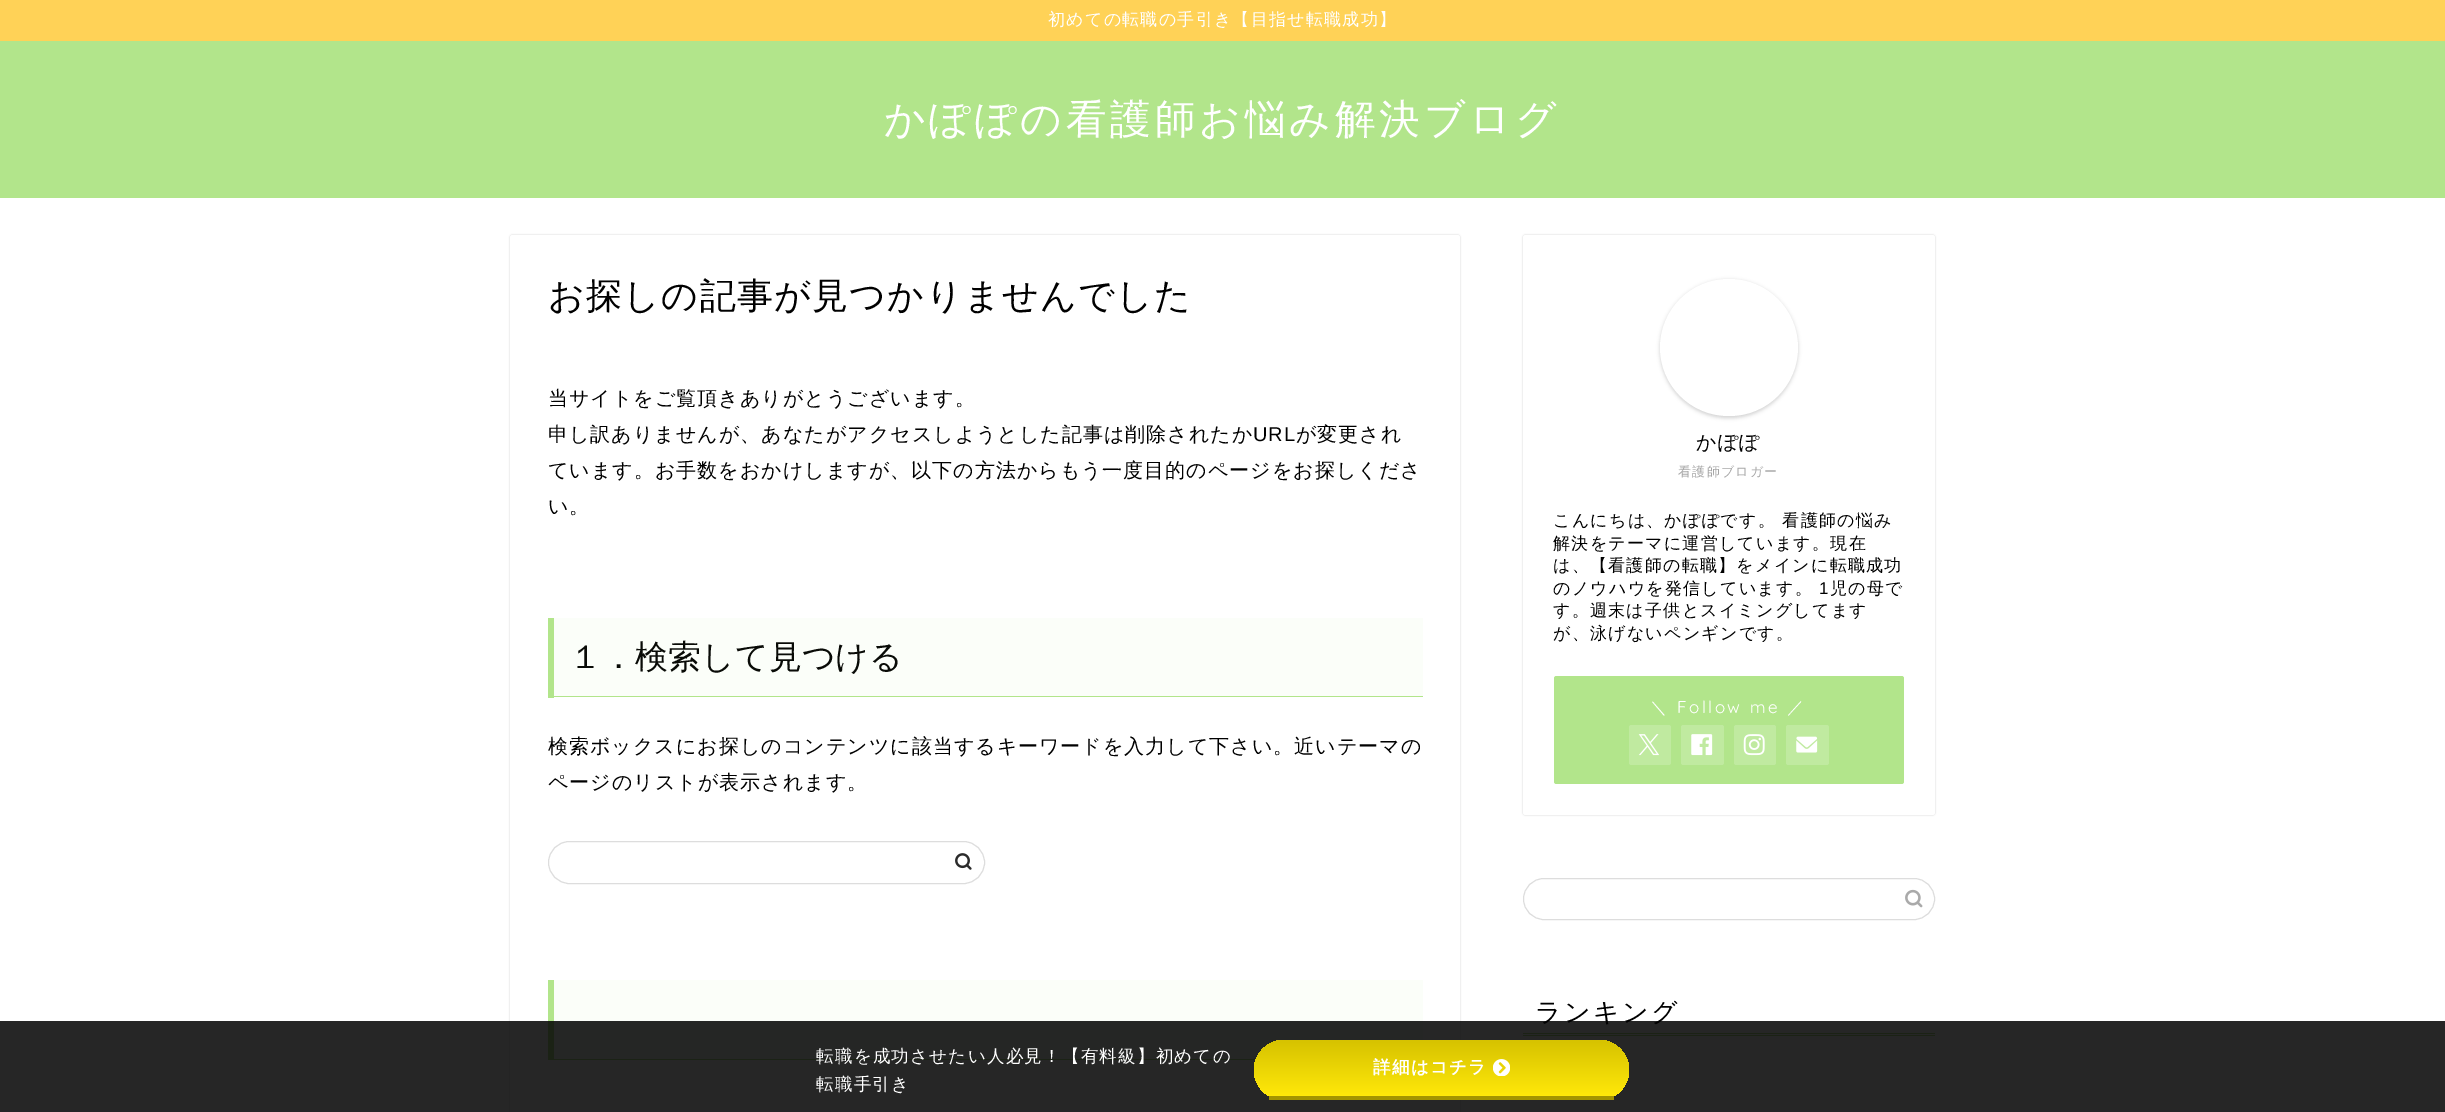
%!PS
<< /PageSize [2445 1112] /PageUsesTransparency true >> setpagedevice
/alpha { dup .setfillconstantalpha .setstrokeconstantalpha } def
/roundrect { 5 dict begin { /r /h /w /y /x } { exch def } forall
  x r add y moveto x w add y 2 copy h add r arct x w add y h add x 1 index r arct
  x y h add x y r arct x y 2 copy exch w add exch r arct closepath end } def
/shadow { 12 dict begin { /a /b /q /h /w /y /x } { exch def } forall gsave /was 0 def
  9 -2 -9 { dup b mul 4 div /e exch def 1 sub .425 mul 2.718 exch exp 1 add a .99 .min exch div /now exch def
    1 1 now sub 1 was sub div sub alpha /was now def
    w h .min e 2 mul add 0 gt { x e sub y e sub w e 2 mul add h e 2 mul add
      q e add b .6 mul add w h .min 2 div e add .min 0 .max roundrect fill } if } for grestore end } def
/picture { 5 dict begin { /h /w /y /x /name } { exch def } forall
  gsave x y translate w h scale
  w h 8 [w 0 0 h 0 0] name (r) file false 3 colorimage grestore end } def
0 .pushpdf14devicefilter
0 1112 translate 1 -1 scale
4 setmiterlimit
1 setgray
0 0 2445 1112 rectfill
1 0.824 0.341 setrgbcolor
0 0 2445 41 rectfill
/WenQuanYiZenHei-Medium [17 0 0 -17 0 0] selectfont
1 setgray
1048 25 moveto 1.25 0 (初めての転職の手引き【目指せ転職成功】) ashow
0.698 0.898 0.545 setrgbcolor
0 41 2445 157 rectfill
/WenQuanYiZenHei-Medium [40.75 0 0 -40.75 0 0] selectfont
1 setgray
884 133 moveto 3.75 0 (かぽぽの看護師お悩み解決ブログ) ashow
0 setgray
510 235 950 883 2.5 1 0.18 shadow
1 setgray
510 235 950 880 2.5 roundrect fill
0.984 0.996 0.976 setrgbcolor
554 980 869 79 rectfill
554 618 869 78 rectfill
/WenQuanYiZenHei-Medium [36 0 0 -36 0 0] selectfont
0 setgray
548 308 moveto 1.25 0 (お探しの記事が見つかりませんでした) ashow
/WenQuanYiZenHei-Medium [20 0 0 -20 0 0] selectfont
548 405 moveto 1 0 (当サイトをご覧頂きありがとうございます。) ashow
548 441 moveto 1 0 (申し訳ありませんが、あなたがアクセスしようとした記事は削除されたか) ashow
/LiberationSans-Regular [20 0 0 -20 0 0] selectfont
1253 441 moveto 1 0 (URL) ashow
/WenQuanYiZenHei-Medium [20 0 0 -20 0 0] selectfont
1296 441 moveto 1 0 (が変更され) ashow
548 477 moveto 1 0 (ています。お手数をおかけしますが、以下の方法からもう一度目的のページをお探しくださ) ashow
548 513 moveto 1 0 (い。) ashow
0.698 0.898 0.545 setrgbcolor
548 696 875 1 rectfill
548 618 6 80 rectfill
/WenQuanYiZenHei-Medium [33 0 0 -33 0 0] selectfont
0.035 0.043 0.027 setrgbcolor
569 668 moveto (１．検索して見つける) show
/WenQuanYiZenHei-Medium [20 0 0 -20 0 0] selectfont
0 setgray
548 753 moveto 1 0 (検索ボックスにお探しのコンテンツに該当するキーワードを入力して下さい。近いテーマの) ashow
548 789 moveto 1 0 (ページのリストが表示されます。) ashow
0.867 setgray
548.5 841.5 436 42 21 roundrect stroke
(img1.rgb) 955 853 17 17 picture
0.698 0.898 0.545 setrgbcolor
548 1059 709 1 rectfill
548 980 6 80 rectfill
0 setgray
1523 235 412 580 2.5 1 0.18 shadow
1 setgray
1523 235 412 580 2.5 roundrect fill
0 setgray
1660 280 138 138 69 2 0.18 shadow
1 setgray
1660 279 138 137 68.5 roundrect fill
0 setgray
1696 449 moveto 1.25 0 (かぽぽ) ashow
/WenQuanYiZenHei-Medium [13 0 0 -13 0 0] selectfont
0.651 setgray
1678 476 moveto 1.25 0 (看護師ブロガー) ashow
/WenQuanYiZenHei-Medium [17 0 0 -17 0 0] selectfont
0 setgray
1553 526 moveto 1.25 0 (こんにちは、かぽぽです。 看護師の悩み) ashow
1553 549 moveto 1.25 0 (解決をテーマに運営しています。現在) ashow
1553 571 moveto 1.25 0 (は、【看護師の転職】をメインに転職成功) ashow
1553 594 moveto 1.25 0 (のノウハウを発信しています。) ashow
/LiberationSans-Regular [17 0 0 -17 0 0] selectfont
1819 594 moveto 1.25 0 (1) ashow
/WenQuanYiZenHei-Medium [17 0 0 -17 0 0] selectfont
1830 594 moveto 1.25 0 (児の母で) ashow
1553 616 moveto 1.25 0 (す。週末は子供とスイミングしてます) ashow
1553 639 moveto 1.25 0 (が、泳げないペンギンです。) ashow
0.698 0.898 0.545 setrgbcolor
1554 676 350 108 2.5 roundrect fill
1 setgray
1650 713 moveto 2.5 0 (＼) ashow
/Quicksand-Regular [17 0 0 -17 0 0] selectfont
1677 713 moveto 2.5 0 (Follow me) ashow
/WenQuanYiZenHei-Medium [17 0 0 -17 0 0] selectfont
1787 713 moveto 2.5 0 (／) ashow
0.753 0.918 0.627 setrgbcolor
1629 725 42 40 2.5 roundrect fill
(img2.rgb) 1638 734 21 22 picture
1681 725 43 40 2.5 roundrect fill
(img3.rgb) 1691 734 22 22 picture
1734 725 42 40 2.5 roundrect fill
(img4.rgb) 1743 734 22 22 picture
1786 725 43 40 2.5 roundrect fill
(img5.rgb) 1796 736 22 17 picture
0.867 setgray
1523.5 878.5 411 41 20.5 roundrect stroke
(img6.rgb) 1905 889 18 19 picture
0.698 0.898 0.545 setrgbcolor
1523 1033 412 1 rectfill
1523 1035 412 1 rectfill
/WenQuanYiZenHei-Medium [26 0 0 -26 0 0] selectfont
0 setgray
1535 1021 moveto 2.5 0 (ランキング) ashow
0.85 alpha
0 1021 2445 91 rectfill
/WenQuanYiZenHei-Medium [17.5 0 0 -17.5 0 0] selectfont
1 alpha
1 setgray
816 1062 moveto 1.25 0 (転職を成功させたい人必見！【有料級】初めての) ashow
816 1090 moveto 1.25 0 (転職手引き) ashow
gsave
1254 1040 375 60 30 roundrect clip newpath
gsave newpath 1284 1040 moveto 1599 1040 lineto 1615.5 1040 1629 1053.5 1629 1070 curveto 1629 1096 lineto 1254 1096 lineto 1254 1070 lineto 1254 1053.5 1267.5 1040 1284 1040 curveto closepath clip newpath
<< /ShadingType 2 /ColorSpace /DeviceRGB /Coords [1441 1040 1441 1096] /Extend [true true] /Function << /FunctionType 2 /Domain [0 1] /C0 [0.839 0.761 0] /C1 [1 0.91 0.039] /N 1 >> >> shfill grestore
grestore
0.639 0.58 0 setrgbcolor
1269 1096 345 4 rectfill
/WenQuanYiZenHei-Bold [17.5 0 0 -17.5 0 0] selectfont
1 setgray
1373 1073 moveto 1.25 0 (詳細はコチラ) ashow
(img7.rgb) 1493 1059 17 17 picture
.poppdf14devicefilter showpage
